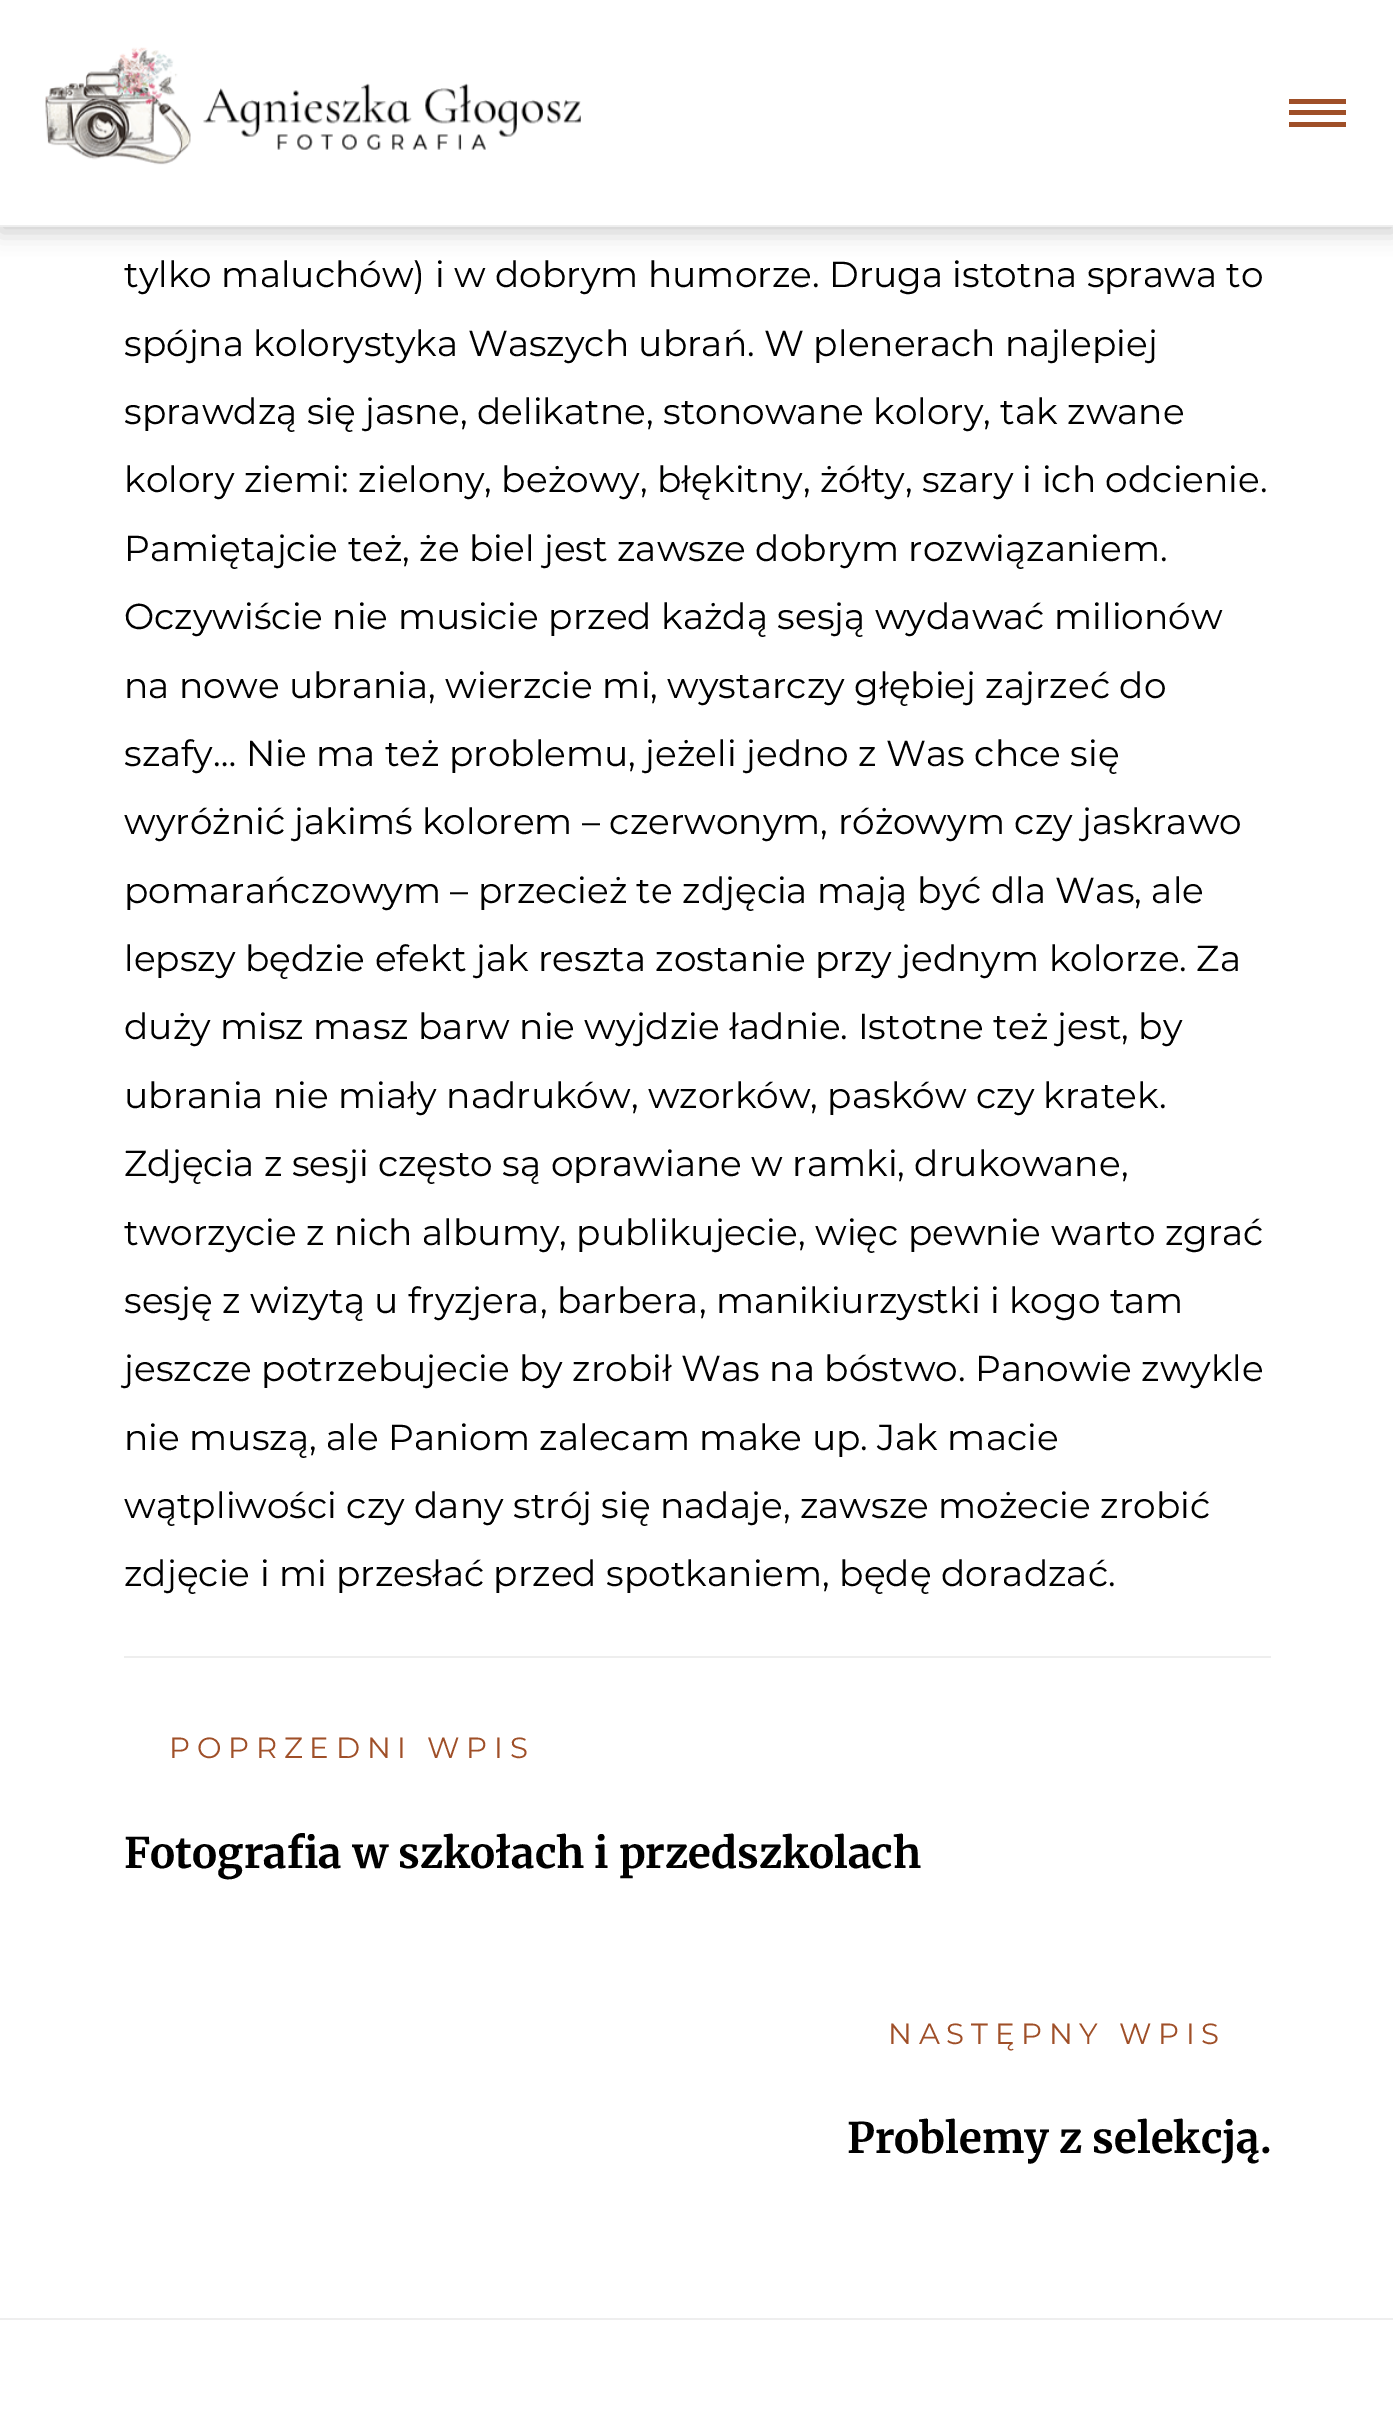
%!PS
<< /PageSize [1393 2423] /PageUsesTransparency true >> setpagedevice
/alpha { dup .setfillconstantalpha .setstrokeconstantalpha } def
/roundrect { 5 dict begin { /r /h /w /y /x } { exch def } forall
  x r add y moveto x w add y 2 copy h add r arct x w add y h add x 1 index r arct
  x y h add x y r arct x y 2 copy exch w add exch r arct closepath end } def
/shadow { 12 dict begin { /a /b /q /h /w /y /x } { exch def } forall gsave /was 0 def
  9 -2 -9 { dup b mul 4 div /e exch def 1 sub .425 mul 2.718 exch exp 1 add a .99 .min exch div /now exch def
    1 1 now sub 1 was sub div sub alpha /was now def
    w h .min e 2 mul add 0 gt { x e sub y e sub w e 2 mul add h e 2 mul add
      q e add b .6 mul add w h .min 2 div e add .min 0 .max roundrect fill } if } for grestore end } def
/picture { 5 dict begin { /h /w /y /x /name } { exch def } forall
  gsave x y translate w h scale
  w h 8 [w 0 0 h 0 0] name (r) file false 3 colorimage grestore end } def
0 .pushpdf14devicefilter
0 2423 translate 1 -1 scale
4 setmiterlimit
1 setgray
0 0 1393 2423 rectfill
0 setgray
0 5 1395 227 0 11 0.2 shadow
1 setgray
0 0 1393 225 rectfill
0.933 setgray
0 225 1393 2 rectfill
(img1.rgb) 45 47 536 118 picture
0.624 0.31 0.157 setrgbcolor
1289 99 57 5 rectfill
1289 110 57 5 rectfill
1289 122 57 5 rectfill
/Montserrat-Regular [36 0 0 -36 0 0] selectfont
0 setgray
124 287 moveto (tylko maluchów\) i w dobrym humorze. Druga istotna sprawa to) show
124 356 moveto (spójna kolorystyka Waszych ubrań. W plenerach najlepiej) show
124 424 moveto (sprawdzą się jasne, delikatne, stonowane kolory, tak zwane) show
124 492 moveto (kolory ziemi: zielony, beżowy, błękitny, żółty, szary i ich odcienie.) show
124 561 moveto (Pamiętajcie też, że biel jest zawsze dobrym rozwiązaniem.) show
124 629 moveto (Oczywiście nie musicie przed każdą sesją wydawać milionów) show
124 698 moveto (na nowe ubrania, wierzcie mi, wystarczy głębiej zajrzeć do) show
124 766 moveto (szafy… Nie ma też problemu, jeżeli jedno z Was chce się) show
124 834 moveto (wyróżnić jakimś kolorem – czerwonym, różowym czy jaskrawo) show
124 903 moveto (pomarańczowym – przecież te zdjęcia mają być dla Was, ale) show
124 971 moveto (lepszy będzie efekt jak reszta zostanie przy jednym kolorze. Za) show
124 1039 moveto (duży misz masz barw nie wyjdzie ładnie. Istotne też jest, by) show
124 1108 moveto (ubrania nie miały nadruków, wzorków, pasków czy kratek.) show
124 1176 moveto (Zdjęcia z sesji często są oprawiane w ramki, drukowane,) show
124 1245 moveto (tworzycie z nich albumy, publikujecie, więc pewnie warto zgrać) show
124 1313 moveto (sesję z wizytą u fryzjera, barbera, manikiurzystki i kogo tam) show
124 1381 moveto (jeszcze potrzebujecie by zrobił Was na bóstwo. Panowie zwykle) show
124 1450 moveto (nie muszą, ale Paniom zalecam make up. Jak macie) show
124 1518 moveto (wątpliwości czy dany strój się nadaje, zawsze możecie zrobić) show
124 1586 moveto (zdjęcie i mi przesłać przed spotkaniem, będę doradzać.) show
0.933 setgray
124 1656 1147 2 rectfill
/Montserrat-Regular [29.25 0 0 -29.25 0 0] selectfont
0.624 0.31 0.157 setrgbcolor
169 1758 moveto 6.75 0 (POPRZEDNI WPIS) ashow
/Merriweather-Bold [42.1 0 0 -42.1 0 0] selectfont
0 setgray
124 1868 moveto (Fotografia w szkołach i przedszkolach) show
/Montserrat-Regular [29.25 0 0 -29.25 0 0] selectfont
0.624 0.31 0.157 setrgbcolor
888 2044 moveto 6.75 0 (NASTĘPNY WPIS) ashow
/Merriweather-Bold [42.1 0 0 -42.1 0 0] selectfont
0 setgray
847 2153 moveto (Problemy z selekcją.) show
0.933 setgray
0 2318 1393 2 rectfill
.poppdf14devicefilter showpage
